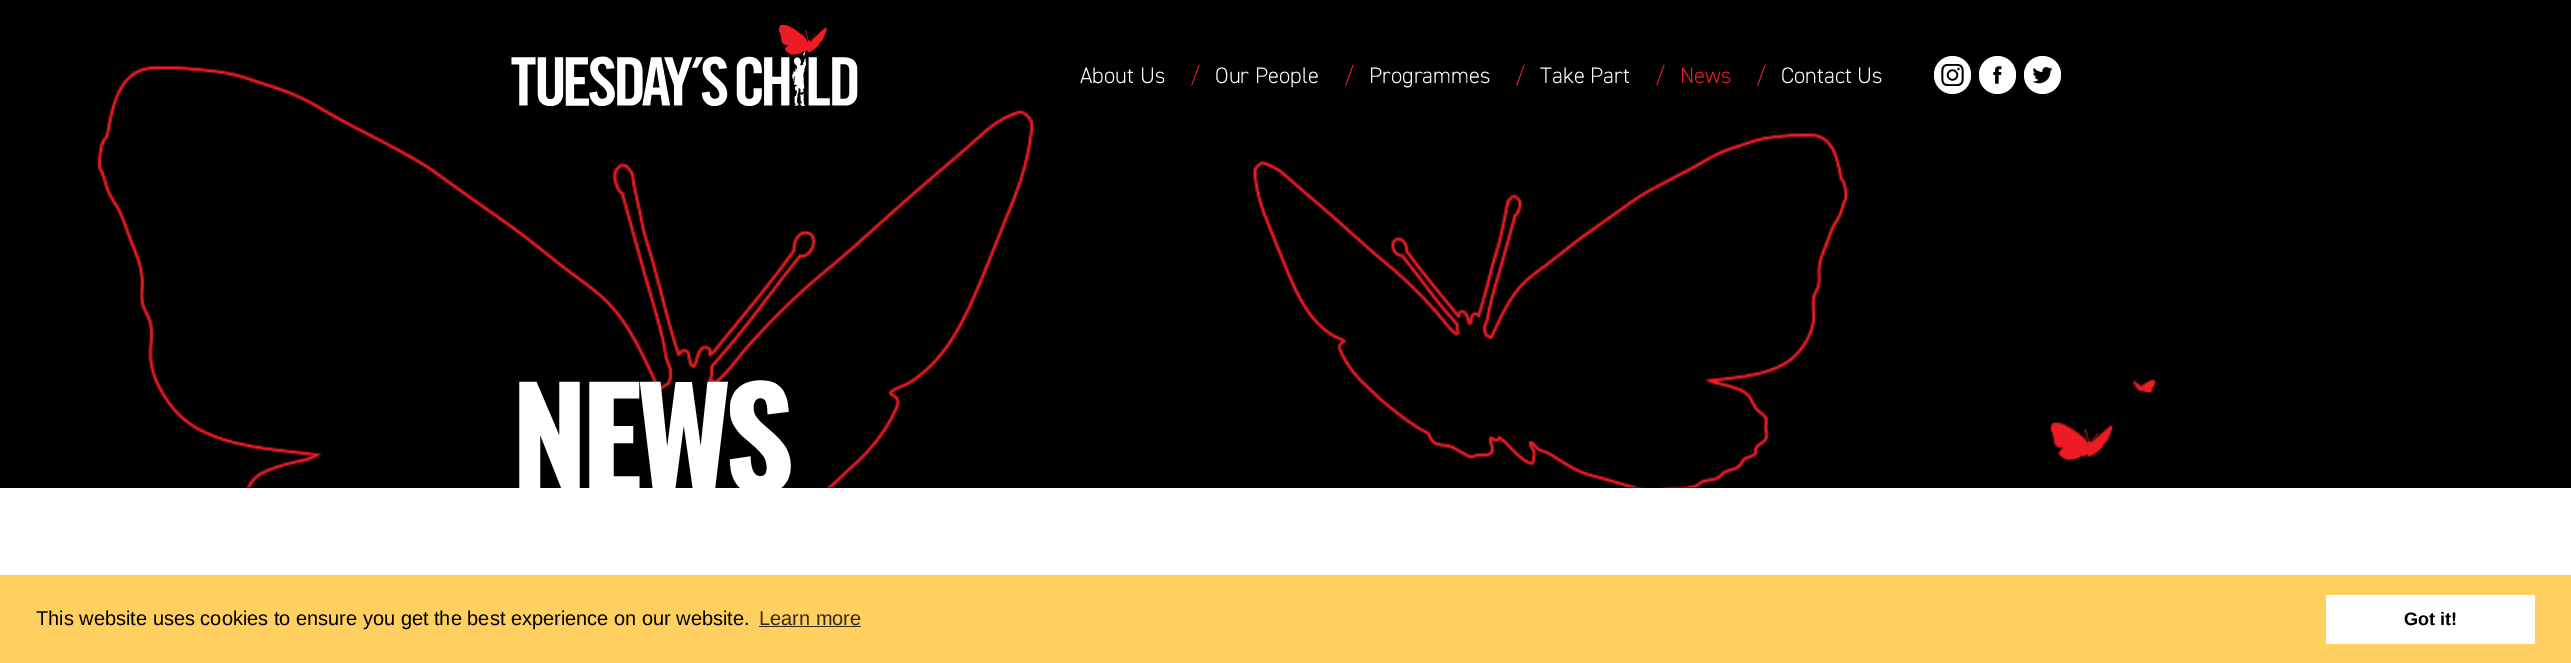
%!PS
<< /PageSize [2571 663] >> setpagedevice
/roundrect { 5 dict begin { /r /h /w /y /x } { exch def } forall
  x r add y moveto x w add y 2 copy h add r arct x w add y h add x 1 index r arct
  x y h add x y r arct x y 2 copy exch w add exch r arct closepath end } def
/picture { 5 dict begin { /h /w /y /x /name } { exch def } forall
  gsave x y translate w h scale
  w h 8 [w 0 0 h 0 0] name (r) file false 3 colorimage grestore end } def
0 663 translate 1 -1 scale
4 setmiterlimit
1 setgray
0 0 2571 663 rectfill
0 setgray
0 0 2571 488 rectfill
(img5.rgb) 97 66 2059 422 picture
(img1.rgb) 511 25 347 81 picture
/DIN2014-Light [22.5 0 0 -22.5 0 0] selectfont
1 setgray
1080 83 moveto (About Us) show
0.929 0.11 0.141 setrgbcolor
1190 83 moveto (/) show
1 setgray
1215 83 moveto (Our People) show
0.929 0.11 0.141 setrgbcolor
1344 83 moveto (/) show
1 setgray
1369 83 moveto (Programmes) show
0.929 0.11 0.141 setrgbcolor
1515 83 moveto (/) show
1 setgray
1540 83 moveto (Take Part) show
0.929 0.11 0.141 setrgbcolor
1655 83 moveto (/) show
1680 83 moveto (News) show
1756 83 moveto (/) show
1 setgray
1781 83 moveto (Contact Us) show
1934 56 37 38 18.5 roundrect fill
(img2.rgb) 1941 64 23 22 picture
1979 56 37 38 18.5 roundrect fill
(img3.rgb) 1993 66 9 18 picture
2024 56 37 38 18.5 roundrect fill
(img4.rgb) 2033 67 20 17 picture
gsave
0 0 2571 488 rectclip
/Oswald-Bold [137.5 0 0 -137.5 0 0] selectfont
511 493 moveto -7 0 (NEWS) ashow
grestore
1 0.816 0.376 setrgbcolor
0 575 2571 88 rectfill
/LiberationSans-Regular [20 0 0 -20 0 0] selectfont
0 setgray
36 625 moveto (This website uses cookies to ensure you get the best experience on our website.) show
0.2 0.165 0.075 setrgbcolor
759 625 moveto (Learn more) show
759 626 102 1 rectfill
1 setgray
2326 595 209 49 rectfill
/LiberationSans-Bold [18 0 0 -18 0 0] selectfont
0 setgray
2404 625 moveto (Got it!) show
showpage
